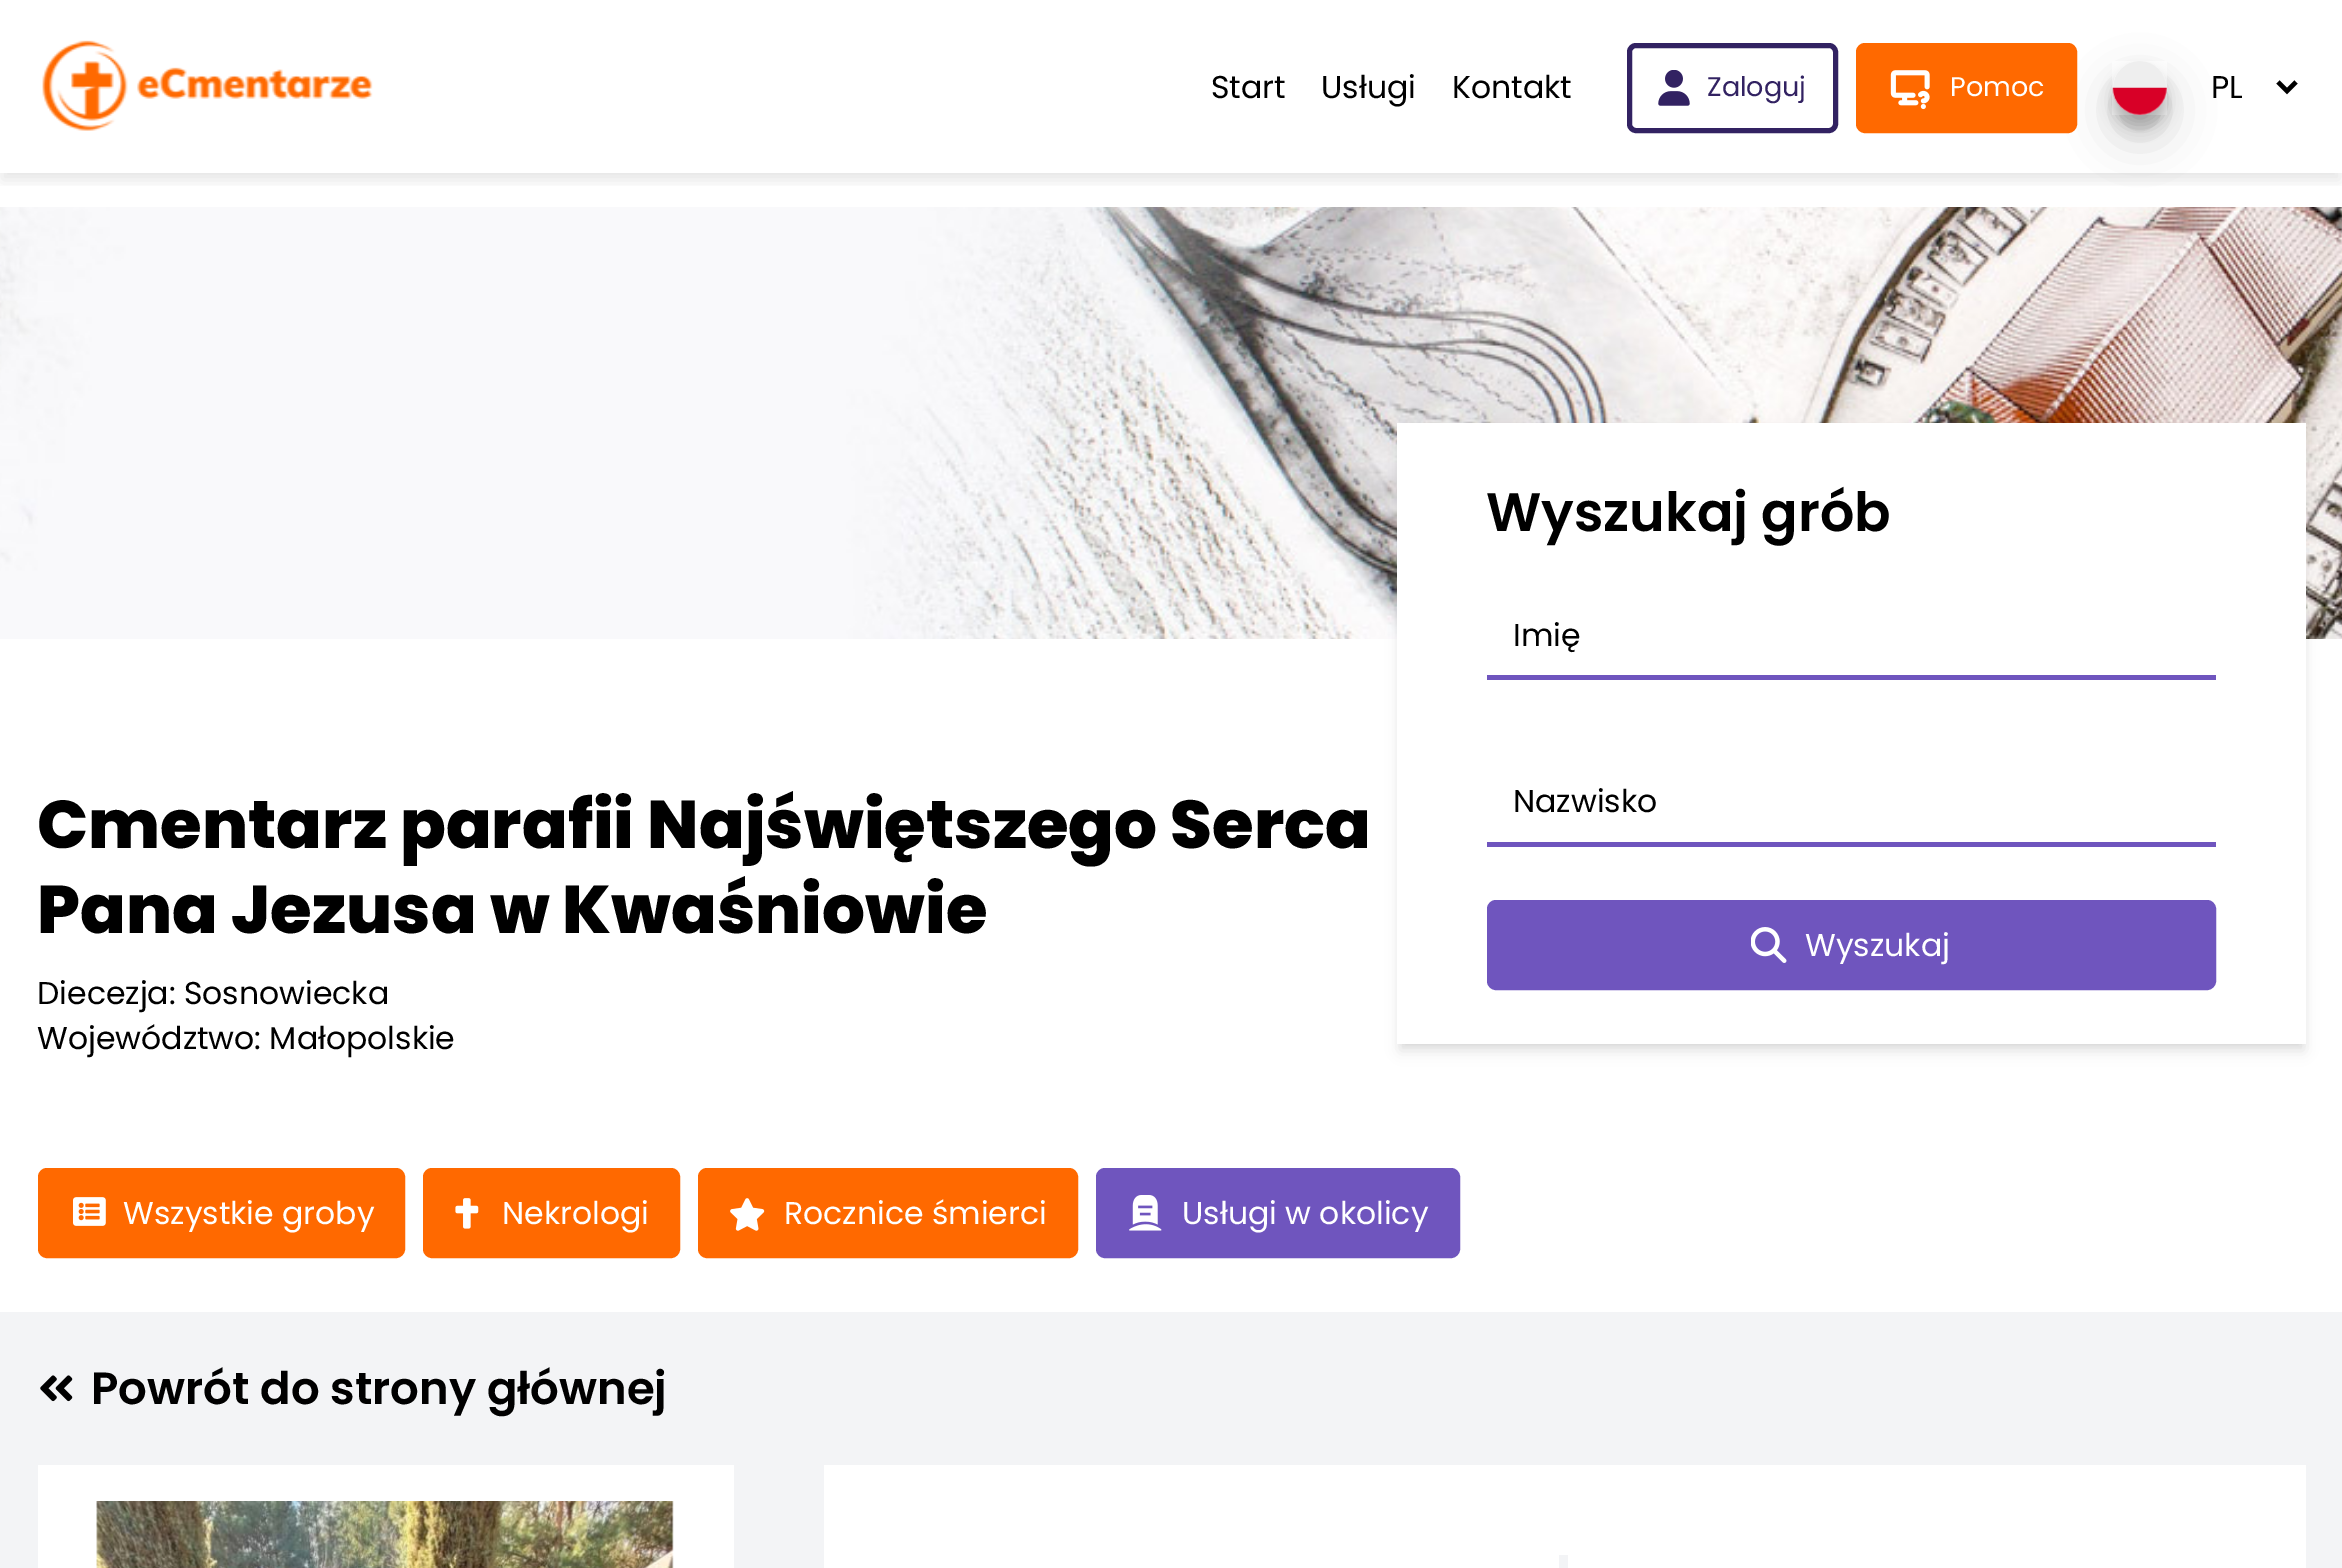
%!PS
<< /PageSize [2342 1568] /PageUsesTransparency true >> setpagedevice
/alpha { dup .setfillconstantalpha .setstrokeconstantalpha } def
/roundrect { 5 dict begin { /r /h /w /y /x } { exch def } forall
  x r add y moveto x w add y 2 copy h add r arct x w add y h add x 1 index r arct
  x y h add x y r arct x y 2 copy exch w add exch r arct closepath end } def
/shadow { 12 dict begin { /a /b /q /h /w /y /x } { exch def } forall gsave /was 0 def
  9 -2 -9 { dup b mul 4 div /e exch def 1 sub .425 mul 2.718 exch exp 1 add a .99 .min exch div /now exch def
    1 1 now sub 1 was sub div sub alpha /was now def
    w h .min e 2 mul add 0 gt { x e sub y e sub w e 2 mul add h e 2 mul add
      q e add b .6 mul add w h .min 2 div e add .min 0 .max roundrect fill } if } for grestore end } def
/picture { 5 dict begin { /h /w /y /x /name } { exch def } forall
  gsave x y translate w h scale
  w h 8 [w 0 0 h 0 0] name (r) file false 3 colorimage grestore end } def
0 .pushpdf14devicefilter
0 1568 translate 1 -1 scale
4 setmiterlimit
1 setgray
0 0 2342 1568 rectfill
gsave
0 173 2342 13 rectclip
0 setgray
2 11 2338 169 0 7 0.1 shadow
grestore
(img1.rgb) 42 40 331 91 picture
/Poppins-Regular [31.5 0 0 -31.5 0 0] selectfont
0 setgray
1211 98 moveto (Start) show
1321 98 moveto (Usługi) show
1452 98 moveto (Kontakt) show
0.196 0.133 0.384 setrgbcolor
5 setlinewidth
1629.5 45.5 206 85 6.5 roundrect stroke
(img2.rgb) 1658 70 32 36 picture
/Poppins-Regular [27 0 0 -27 0 0] selectfont
1707 96 moveto (Zaloguj) show
0 setgray
2113 83 54 54 27 22.5 0.19 shadow
1 0.412 0 setrgbcolor
1858.5 45.5 216 85 6.5 roundrect gsave fill grestore
stroke
(img3.rgb) 1890 70 40 40 picture
1 setgray
1950 96 moveto (Pomoc) show
0 setgray
2113 74 54 54 27 7 0.23 shadow
(img4.rgb) 2112 61 55 54 picture
4.5 setlinewidth
newpath 2278 82 moveto 2287 91 lineto 2296 82 lineto stroke
/Poppins-Regular [31.5 0 0 -31.5 0 0] selectfont
2211 98 moveto (PL) show
(img5.rgb) 0 207 2342 432 picture
1402 432 900 612 0 4.5 0.1 shadow
1400 434 904 617 0 7 0.1 shadow
1 setgray
1397 423 909 621 rectfill
/Poppins-SemiBold [54 0 0 -54 0 0] selectfont
0 setgray
1486 531 moveto (Wyszukaj grób) show
/Poppins-Regular [31.5 0 0 -31.5 0 0] selectfont
1513 646 moveto (Imię) show
0.435 0.333 0.745 setrgbcolor
1487 675 729 5 rectfill
0 setgray
1513 812 moveto (Nazwisko) show
0.435 0.333 0.745 setrgbcolor
1487 842 729 5 rectfill
1489.5 902.5 724 85 6.5 roundrect gsave fill grestore
5 setlinewidth
stroke
(img6.rgb) 1751 927 36 36 picture
1 setgray
1805 956 moveto (Wyszukaj) show
/Poppins-ExtraBold [67.5 0 0 -67.5 0 0] selectfont
0 setgray
37 848 moveto (Cmentarz parafii Najświętszego Serca) show
37 933 moveto (Pana Jezusa w Kwaśniowie) show
/Poppins-Regular [31.5 0 0 -31.5 0 0] selectfont
37 1004 moveto (Diecezja: Sosnowiecka) show
37 1049 moveto (Województwo: Małopolskie) show
1 0.412 0 setrgbcolor
40.5 1170.5 362 85 6.5 roundrect gsave fill grestore
stroke
(img7.rgb) 73 1197 33 29 picture
1 setgray
123 1224 moveto (Wszystkie groby) show
1 0.412 0 setrgbcolor
425.5 1170.5 252 85 6.5 roundrect gsave fill grestore
stroke
(img8.rgb) 455 1198 24 31 picture
1 setgray
502 1224 moveto (Nekrologi) show
1 0.412 0 setrgbcolor
700.5 1170.5 375 85 6.5 roundrect gsave fill grestore
stroke
(img9.rgb) 730 1198 35 33 picture
1 setgray
784 1224 moveto (Rocznice śmierci) show
0.435 0.333 0.745 setrgbcolor
1098.5 1170.5 359 85 6.5 roundrect gsave fill grestore
stroke
(img10.rgb) 1129 1195 33 36 picture
1 setgray
1182 1224 moveto (Usługi w okolicy) show
0.953 0.957 0.965 setrgbcolor
0 1312 2342 256 rectfill
(img11.rgb) 40 1375 33 27 picture
/Poppins-SemiBold [45 0 0 -45 0 0] selectfont
0 setgray
91 1404 moveto (Powrót do strony głównej) show
1 setgray
38 1465 696 103 rectfill
(img12.rgb) 96 1501 578 67 picture
824 1465 1482 103 rectfill
0.953 0.957 0.965 setrgbcolor
1559 1555 9 13 rectfill
.poppdf14devicefilter showpage
